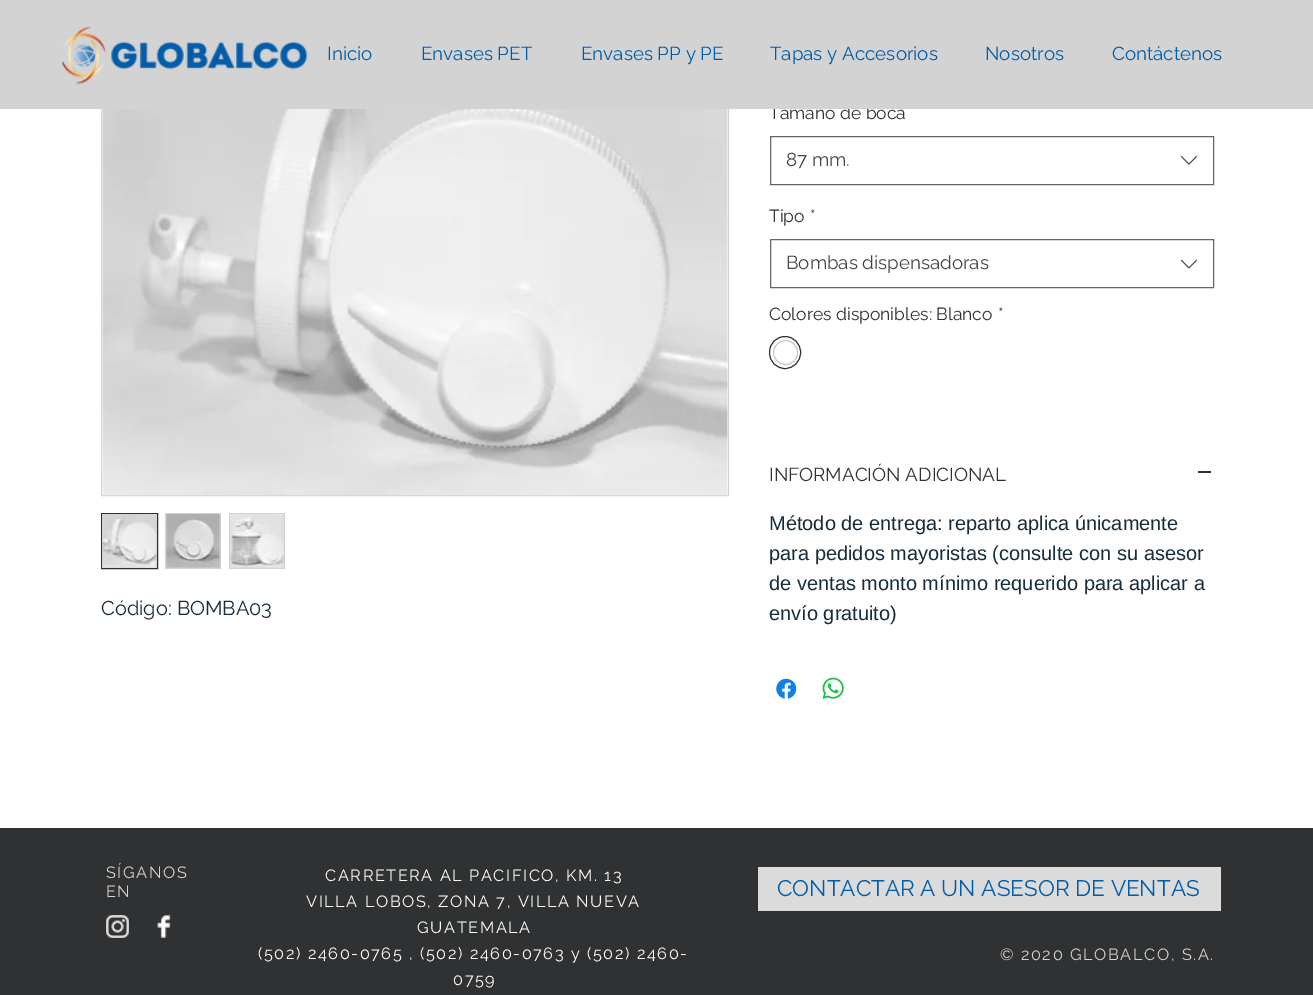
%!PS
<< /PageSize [1313 995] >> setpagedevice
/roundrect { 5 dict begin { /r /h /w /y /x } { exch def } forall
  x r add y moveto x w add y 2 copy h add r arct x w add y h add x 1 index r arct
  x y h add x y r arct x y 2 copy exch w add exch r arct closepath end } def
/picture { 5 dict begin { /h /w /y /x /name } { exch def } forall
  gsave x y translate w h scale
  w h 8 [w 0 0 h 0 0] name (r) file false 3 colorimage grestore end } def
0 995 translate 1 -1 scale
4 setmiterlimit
1 setgray
0 0 1313 995 rectfill
0.827 setgray
101.5 38.5 627 457 rectstroke
/Raleway-Regular [17.5 0 0 -17.5 0 0] selectfont
0.188 0.192 0.196 setrgbcolor
769 119 moveto (Tamaño de boca) show
0.827 setgray
0 0 1313 109 rectfill
(img1.rgb) 62 26 246 59 picture
/Raleway-Regular [18.75 0 0 -18.75 0 0] selectfont
0 0.365 0.667 setrgbcolor
327 60 moveto (Inicio) show
421 60 moveto (Envases PET) show
581 60 moveto (Envases PP y PE) show
770 60 moveto (Tapas y Accesorios) show
985 60 moveto (Nosotros) show
1112 60 moveto (Contáctenos) show
(img2.rgb) 102 109 626 387 picture
0.827 setgray
newpath 101.5 513.5 moveto 157.5 513.5 lineto 157.5 568.5 lineto 101.5 568.5 lineto closepath gsave fill grestore
0.188 0.192 0.196 setrgbcolor
stroke
(img3.rgb) 102 514 55 54 picture
0.827 setgray
165 513 56 56 rectfill
(img4.rgb) 166 514 55 54 picture
229 513 56 56 rectfill
(img5.rgb) 230 514 54 54 picture
/Raleway-Regular [20 0 0 -20 0 0] selectfont
0.086 0.176 0.239 setrgbcolor
101 615 moveto (Código: BOMBA03) show
0.4 setgray
770.5 136.5 443 48 rectstroke
/Raleway-Regular [18.75 0 0 -18.75 0 0] selectfont
0.267 setgray
786 166 moveto (87 mm.) show
(img6.rgb) 1180 155 18 10 picture
/Raleway-Regular [17.5 0 0 -17.5 0 0] selectfont
0.188 0.192 0.196 setrgbcolor
769 222 moveto (Tipo) show
810 222 moveto (*) show
0.4 setgray
770.5 239.5 443 48 rectstroke
/Raleway-Regular [18.75 0 0 -18.75 0 0] selectfont
0.267 setgray
786 269 moveto (Bombas dispensadoras) show
(img7.rgb) 1180 259 18 10 picture
/Raleway-Regular [17.5 0 0 -17.5 0 0] selectfont
0.188 0.192 0.196 setrgbcolor
769 320 moveto (Colores disponibles: Blanco) show
998 320 moveto (*) show
769.5 336.5 31 32 15.5 roundrect stroke
0.788 setgray
newpath 785.5 352.5 12 0 360 arc closepath stroke
/Raleway-Regular [18.75 0 0 -18.75 0 0] selectfont
0.188 0.192 0.196 setrgbcolor
769 481 moveto (INFORMACIÓN ADICIONAL) show
1198 471 13 2 rectfill
/LiberationSans-Regular [20 0 0 -20 0 0] selectfont
0.086 0.176 0.239 setrgbcolor
769 530 moveto (Método de entrega: reparto aplica únicamente) show
769 560 moveto (para pedidos mayoristas \(consulte con su asesor) show
769 590 moveto (de ventas monto mínimo requerido para aplicar a) show
769 620 moveto (envío gratuito\)) show
(img8.rgb) 776 678 21 21 picture
(img9.rgb) 822 677 22 22 picture
0.188 0.192 0.196 setrgbcolor
0 828 1313 167 rectfill
/Raleway-Regular [16.25 0 0 -16.25 0 0] selectfont
0.827 setgray
106 878 moveto 1.6 0 (SÍGANOS) ashow
106 897 moveto 1.6 0 (EN) ashow
1 setgray
325 881 moveto 1.6 0 (CARRETERA AL PACIFICO, KM. 13) ashow
306 907 moveto 1.6 0 (VILLA LOBOS, ZONA 7, VILLA NUEVA) ashow
417 933 moveto 1.6 0 (GUATEMALA) ashow
258 959 moveto 1.6 0 (\(502\) 2460-0765 , \(502\) 2460-0763 y \(502\) 2460-) ashow
453 985 moveto 1.6 0 (0759) ashow
0.859 setgray
758 867 463 44 rectfill
/Raleway-Regular [22.5 0 0 -22.5 0 0] selectfont
0 0.365 0.667 setrgbcolor
777 896 moveto (CONTACTAR A UN ASESOR DE VENTAS) show
(img10.rgb) 106 915 23 23 picture
(img11.rgb) 157 915 14 23 picture
/Raleway-Regular [16.25 0 0 -16.25 0 0] selectfont
0.827 setgray
1000 960 moveto 1.6 0 (© 2020 GLOBALCO, S.A.) ashow
showpage
